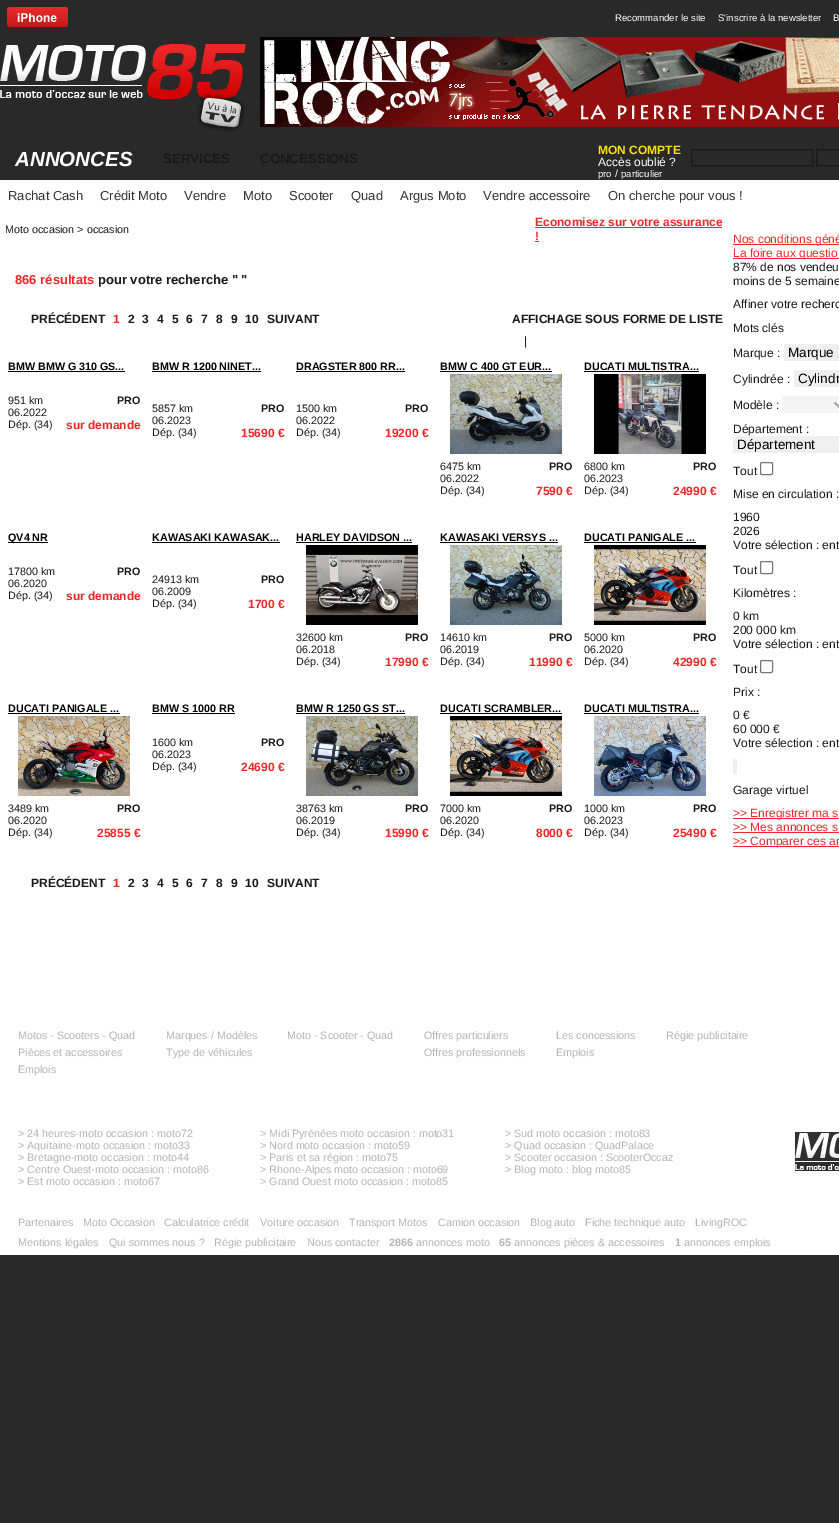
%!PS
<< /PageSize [839 1523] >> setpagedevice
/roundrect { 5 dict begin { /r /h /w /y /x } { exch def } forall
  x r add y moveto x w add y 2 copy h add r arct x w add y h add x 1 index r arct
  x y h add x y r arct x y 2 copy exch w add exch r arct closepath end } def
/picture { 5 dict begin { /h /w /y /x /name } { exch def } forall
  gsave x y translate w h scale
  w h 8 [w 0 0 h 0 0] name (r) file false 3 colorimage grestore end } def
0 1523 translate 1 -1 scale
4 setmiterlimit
0.161 setgray
0 0 839 1523 rectfill
(img1.rgb) 7 7 61 20 picture
/LiberationSans-Regular [9.6 0 0 -9.6 0 0] selectfont
1 setgray
615 21 moveto (Recommander le site) show
718 21 moveto (S'inscrire à la newsletter) show
833 21 moveto (B) show
(img2.rgb) 0 44 246 55 picture
(img3.rgb) 197 94 48 37 picture
(img4.rgb) 260 37 579 90 picture
/LiberationSans-BoldItalic [20.5 0 0 -20.5 0 0] selectfont
15 166 moveto (ANNONCES) show
/LiberationSans-Bold [13.25 0 0 -13.25 0 0] selectfont
0.098 setgray
163 163 moveto (SERVICES) show
260 163 moveto (CONCESSIONS) show
/LiberationSans-Bold [12 0 0 -12 0 0] selectfont
1 0.878 0 setrgbcolor
598 154 moveto (MON COMPTE) show
/LiberationSans-Regular [12 0 0 -12 0 0] selectfont
1 setgray
598 166 moveto (Accès oublié ?) show
/LiberationSans-Regular [9.5 0 0 -9.5 0 0] selectfont
598 177 moveto (pro) show
/LiberationSans-Regular [10.75 0 0 -10.75 0 0] selectfont
615 177 moveto (/) show
/LiberationSans-Regular [9.5 0 0 -9.5 0 0] selectfont
621 177 moveto (particulier) show
0.098 setgray
691.5 149.5 121 16 rectstroke
816.5 149.5 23 16 rectstroke
1 setgray
0 180 839 1075 rectfill
/LiberationSans-Regular [13 0 0 -13 0 0] selectfont
0.2 setgray
8 200 moveto (Rachat Cash) show
100 200 moveto (Crédit Moto) show
184 200 moveto (Vendre) show
243 200 moveto (Moto) show
289 200 moveto (Scooter) show
351 200 moveto (Quad) show
400 200 moveto (Argus Moto) show
483 200 moveto (Vendre accessoire) show
608 200 moveto (On cherche pour vous !) show
/LiberationSans-Regular [10.75 0 0 -10.75 0 0] selectfont
0.098 setgray
5 233 moveto (Moto occasion > occasion) show
/LiberationSans-Bold [12 0 0 -12 0 0] selectfont
0.925 0.161 0.161 setrgbcolor
535 226 moveto (Economisez sur votre assurance) show
535 227 187 1 rectfill
535 240 moveto (!) show
535 241 4 1 rectfill
/LiberationSans-Bold [13 0 0 -13 0 0] selectfont
15 284 moveto (866 résultats) show
0.098 setgray
98 284 moveto (pour votre recherche " ") show
/LiberationSans-Bold [12 0 0 -12 0 0] selectfont
31 323 moveto (PRÉCÉDENT) show
0.925 0.161 0.161 setrgbcolor
113 323 moveto (1) show
0.098 setgray
128 323 moveto (2) show
142 323 moveto (3) show
157 323 moveto (4) show
172 323 moveto (5) show
186 323 moveto (6) show
201 323 moveto (7) show
216 323 moveto (8) show
231 323 moveto (9) show
245 323 moveto (10) show
267 323 moveto (SUIVANT) show
512 323 moveto (AFFICHAGE SOUS FORME DE LISTE) show
/LiberationSans-Regular [12 0 0 -12 0 0] selectfont
524 345 moveto (|) show
/LiberationSans-Bold [10.75 0 0 -10.75 0 0] selectfont
0 setgray
8 370 moveto (BMW BMW G 310 GS...) show
8 371 117 1 rectfill
/LiberationSans-Regular [10.75 0 0 -10.75 0 0] selectfont
0.098 setgray
8 404 moveto (951 km) show
8 416 moveto (06.2022) show
8 428 moveto (Dép. \(34\)) show
/LiberationSans-Bold [10.75 0 0 -10.75 0 0] selectfont
117 404 moveto (PRO) show
/LiberationSans-Bold [12 0 0 -12 0 0] selectfont
0.925 0.161 0.161 setrgbcolor
66 429 moveto (sur demande) show
/LiberationSans-Bold [10.75 0 0 -10.75 0 0] selectfont
0 setgray
152 370 moveto (BMW R 1200 NINET...) show
152 371 109 1 rectfill
/LiberationSans-Regular [10.75 0 0 -10.75 0 0] selectfont
0.098 setgray
152 412 moveto (5857 km) show
152 424 moveto (06.2023) show
152 436 moveto (Dép. \(34\)) show
/LiberationSans-Bold [10.75 0 0 -10.75 0 0] selectfont
261 412 moveto (PRO) show
/LiberationSans-Bold [12 0 0 -12 0 0] selectfont
0.925 0.161 0.161 setrgbcolor
241 437 moveto (15690 €) show
/LiberationSans-Bold [10.75 0 0 -10.75 0 0] selectfont
0 setgray
296 370 moveto (DRAGSTER 800 RR...) show
296 371 109 1 rectfill
/LiberationSans-Regular [10.75 0 0 -10.75 0 0] selectfont
0.098 setgray
296 412 moveto (1500 km) show
296 424 moveto (06.2022) show
296 436 moveto (Dép. \(34\)) show
/LiberationSans-Bold [10.75 0 0 -10.75 0 0] selectfont
405 412 moveto (PRO) show
/LiberationSans-Bold [12 0 0 -12 0 0] selectfont
0.925 0.161 0.161 setrgbcolor
385 437 moveto (19200 €) show
/LiberationSans-Bold [10.75 0 0 -10.75 0 0] selectfont
0 setgray
440 370 moveto (BMW C 400 GT EUR...) show
440 371 112 1 rectfill
(img5.rgb) 450 374 112 80 picture
/LiberationSans-Regular [10.75 0 0 -10.75 0 0] selectfont
0.098 setgray
440 470 moveto (6475 km) show
440 482 moveto (06.2022) show
440 494 moveto (Dép. \(34\)) show
/LiberationSans-Bold [10.75 0 0 -10.75 0 0] selectfont
549 470 moveto (PRO) show
/LiberationSans-Bold [12 0 0 -12 0 0] selectfont
0.925 0.161 0.161 setrgbcolor
536 495 moveto (7590 €) show
/LiberationSans-Bold [10.75 0 0 -10.75 0 0] selectfont
0 setgray
584 370 moveto (DUCATI MULTISTRA...) show
584 371 115 1 rectfill
(img6.rgb) 594 374 112 80 picture
/LiberationSans-Regular [10.75 0 0 -10.75 0 0] selectfont
0.098 setgray
584 470 moveto (6800 km) show
584 482 moveto (06.2023) show
584 494 moveto (Dép. \(34\)) show
/LiberationSans-Bold [10.75 0 0 -10.75 0 0] selectfont
693 470 moveto (PRO) show
/LiberationSans-Bold [12 0 0 -12 0 0] selectfont
0.925 0.161 0.161 setrgbcolor
673 495 moveto (24990 €) show
0 setgray
8 542 40 1 rectfill
/LiberationSans-Bold [10.75 0 0 -10.75 0 0] selectfont
8 541 moveto (QV4 NR) show
/LiberationSans-Regular [10.75 0 0 -10.75 0 0] selectfont
0.098 setgray
8 575 moveto (17800 km) show
8 587 moveto (06.2020) show
8 599 moveto (Dép. \(34\)) show
/LiberationSans-Bold [10.75 0 0 -10.75 0 0] selectfont
117 575 moveto (PRO) show
/LiberationSans-Bold [12 0 0 -12 0 0] selectfont
0.925 0.161 0.161 setrgbcolor
66 600 moveto (sur demande) show
/LiberationSans-Bold [10.75 0 0 -10.75 0 0] selectfont
0 setgray
152 541 moveto (KAWASAKI KAWASAK...) show
152 542 128 1 rectfill
/LiberationSans-Regular [10.75 0 0 -10.75 0 0] selectfont
0.098 setgray
152 583 moveto (24913 km) show
152 595 moveto (06.2009) show
152 607 moveto (Dép. \(34\)) show
/LiberationSans-Bold [10.75 0 0 -10.75 0 0] selectfont
261 583 moveto (PRO) show
/LiberationSans-Bold [12 0 0 -12 0 0] selectfont
0.925 0.161 0.161 setrgbcolor
248 608 moveto (1700 €) show
/LiberationSans-Bold [10.75 0 0 -10.75 0 0] selectfont
0 setgray
296 541 moveto (HARLEY DAVIDSON ...) show
296 542 116 1 rectfill
(img7.rgb) 306 545 112 80 picture
/LiberationSans-Regular [10.75 0 0 -10.75 0 0] selectfont
0.098 setgray
296 641 moveto (32600 km) show
296 653 moveto (06.2018) show
296 665 moveto (Dép. \(34\)) show
/LiberationSans-Bold [10.75 0 0 -10.75 0 0] selectfont
405 641 moveto (PRO) show
/LiberationSans-Bold [12 0 0 -12 0 0] selectfont
0.925 0.161 0.161 setrgbcolor
385 666 moveto (17990 €) show
/LiberationSans-Bold [10.75 0 0 -10.75 0 0] selectfont
0 setgray
440 541 moveto (KAWASAKI VERSYS ...) show
440 542 118 1 rectfill
(img8.rgb) 450 545 112 80 picture
/LiberationSans-Regular [10.75 0 0 -10.75 0 0] selectfont
0.098 setgray
440 641 moveto (14610 km) show
440 653 moveto (06.2019) show
440 665 moveto (Dép. \(34\)) show
/LiberationSans-Bold [10.75 0 0 -10.75 0 0] selectfont
549 641 moveto (PRO) show
/LiberationSans-Bold [12 0 0 -12 0 0] selectfont
0.925 0.161 0.161 setrgbcolor
529 666 moveto (11990 €) show
/LiberationSans-Bold [10.75 0 0 -10.75 0 0] selectfont
0 setgray
584 541 moveto (DUCATI PANIGALE ...) show
584 542 112 1 rectfill
(img9.rgb) 594 545 112 80 picture
/LiberationSans-Regular [10.75 0 0 -10.75 0 0] selectfont
0.098 setgray
584 641 moveto (5000 km) show
584 653 moveto (06.2020) show
584 665 moveto (Dép. \(34\)) show
/LiberationSans-Bold [10.75 0 0 -10.75 0 0] selectfont
693 641 moveto (PRO) show
/LiberationSans-Bold [12 0 0 -12 0 0] selectfont
0.925 0.161 0.161 setrgbcolor
673 666 moveto (42990 €) show
/LiberationSans-Bold [10.75 0 0 -10.75 0 0] selectfont
0 setgray
8 712 moveto (DUCATI PANIGALE ...) show
8 713 112 1 rectfill
(img10.rgb) 18 716 112 80 picture
/LiberationSans-Regular [10.75 0 0 -10.75 0 0] selectfont
0.098 setgray
8 812 moveto (3489 km) show
8 824 moveto (06.2020) show
8 836 moveto (Dép. \(34\)) show
/LiberationSans-Bold [10.75 0 0 -10.75 0 0] selectfont
117 812 moveto (PRO) show
/LiberationSans-Bold [12 0 0 -12 0 0] selectfont
0.925 0.161 0.161 setrgbcolor
97 837 moveto (25855 €) show
/LiberationSans-Bold [10.75 0 0 -10.75 0 0] selectfont
0 setgray
152 712 moveto (BMW S 1000 RR) show
152 713 83 1 rectfill
/LiberationSans-Regular [10.75 0 0 -10.75 0 0] selectfont
0.098 setgray
152 746 moveto (1600 km) show
152 758 moveto (06.2023) show
152 770 moveto (Dép. \(34\)) show
/LiberationSans-Bold [10.75 0 0 -10.75 0 0] selectfont
261 746 moveto (PRO) show
/LiberationSans-Bold [12 0 0 -12 0 0] selectfont
0.925 0.161 0.161 setrgbcolor
241 771 moveto (24690 €) show
/LiberationSans-Bold [10.75 0 0 -10.75 0 0] selectfont
0 setgray
296 712 moveto (BMW R 1250 GS ST...) show
296 713 109 1 rectfill
(img11.rgb) 306 716 112 80 picture
/LiberationSans-Regular [10.75 0 0 -10.75 0 0] selectfont
0.098 setgray
296 812 moveto (38763 km) show
296 824 moveto (06.2019) show
296 836 moveto (Dép. \(34\)) show
/LiberationSans-Bold [10.75 0 0 -10.75 0 0] selectfont
405 812 moveto (PRO) show
/LiberationSans-Bold [12 0 0 -12 0 0] selectfont
0.925 0.161 0.161 setrgbcolor
385 837 moveto (15990 €) show
/LiberationSans-Bold [10.75 0 0 -10.75 0 0] selectfont
0 setgray
440 712 moveto (DUCATI SCRAMBLER...) show
440 713 122 1 rectfill
(img12.rgb) 450 716 112 80 picture
/LiberationSans-Regular [10.75 0 0 -10.75 0 0] selectfont
0.098 setgray
440 812 moveto (7000 km) show
440 824 moveto (06.2020) show
440 836 moveto (Dép. \(34\)) show
/LiberationSans-Bold [10.75 0 0 -10.75 0 0] selectfont
549 812 moveto (PRO) show
/LiberationSans-Bold [12 0 0 -12 0 0] selectfont
0.925 0.161 0.161 setrgbcolor
536 837 moveto (8000 €) show
/LiberationSans-Bold [10.75 0 0 -10.75 0 0] selectfont
0 setgray
584 712 moveto (DUCATI MULTISTRA...) show
584 713 115 1 rectfill
(img13.rgb) 594 716 112 80 picture
/LiberationSans-Regular [10.75 0 0 -10.75 0 0] selectfont
0.098 setgray
584 812 moveto (1000 km) show
584 824 moveto (06.2023) show
584 836 moveto (Dép. \(34\)) show
/LiberationSans-Bold [10.75 0 0 -10.75 0 0] selectfont
693 812 moveto (PRO) show
/LiberationSans-Bold [12 0 0 -12 0 0] selectfont
0.925 0.161 0.161 setrgbcolor
673 837 moveto (25490 €) show
0.098 setgray
31 887 moveto (PRÉCÉDENT) show
0.925 0.161 0.161 setrgbcolor
113 887 moveto (1) show
0.098 setgray
128 887 moveto (2) show
142 887 moveto (3) show
157 887 moveto (4) show
172 887 moveto (5) show
186 887 moveto (6) show
201 887 moveto (7) show
216 887 moveto (8) show
231 887 moveto (9) show
245 887 moveto (10) show
267 887 moveto (SUIVANT) show
0.925 0.161 0.161 setrgbcolor
733 244 106 1 rectfill
/LiberationSans-Regular [12 0 0 -12 0 0] selectfont
733 243 moveto (Nos conditions géné) show
733 258 106 1 rectfill
733 257 moveto (La foire aux questio) show
0.098 setgray
733 271 moveto (87% de nos vendeu) show
733 285 moveto (moins de 5 semaine) show
733 308 moveto (Affiner votre recherc) show
733 332 moveto (Mots clés) show
733 357 moveto (Marque :) show
0.937 setgray
784 344 55 17 rectfill
/LiberationSans-Regular [13.5 0 0 -13.5 0 0] selectfont
0 setgray
788 357 moveto (Marque) show
/LiberationSans-Regular [12 0 0 -12 0 0] selectfont
0.098 setgray
733 383 moveto (Cylindrée :) show
0.937 setgray
794 370 45 17 rectfill
/LiberationSans-Regular [13.5 0 0 -13.5 0 0] selectfont
0 setgray
798 383 moveto (Cylindr) show
/LiberationSans-Regular [12 0 0 -12 0 0] selectfont
0.098 setgray
733 409 moveto (Modèle :) show
0.957 setgray
782 396 57 17 rectfill
0.651 setgray
2 setlinewidth
newpath 834.5 402.5 moveto 838.5 406.5 lineto 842.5 402.5 lineto stroke
0.098 setgray
733 433 moveto (Département :) show
0.937 setgray
733 436 106 17 rectfill
/LiberationSans-Regular [13.5 0 0 -13.5 0 0] selectfont
0 setgray
737 449 moveto (Département) show
/LiberationSans-Regular [12 0 0 -12 0 0] selectfont
0.098 setgray
733 475 moveto (Tout) show
0.463 setgray
1 setlinewidth
760.5 462.5 12 12 1.5 roundrect stroke
0.098 setgray
733 498 moveto (Mise en circulation :) show
733 521 moveto (1960) show
733 535 moveto (2026) show
733 549 moveto (Votre sélection : ent) show
733 574 moveto (Tout) show
0.463 setgray
760.5 561.5 12 12 1.5 roundrect stroke
0.098 setgray
733 597 moveto (Kilomètres :) show
733 620 moveto (0 km) show
733 634 moveto (200 000 km) show
733 648 moveto (Votre sélection : ent) show
733 673 moveto (Tout) show
0.463 setgray
760.5 660.5 12 12 1.5 roundrect stroke
0.098 setgray
733 696 moveto (Prix :) show
733 719 moveto (0 €) show
733 733 moveto (60 000 €) show
733 747 moveto (Votre sélection : ent) show
0.937 setgray
733 759 4 15 rectfill
0.098 setgray
733 794 moveto (Garage virtuel) show
0.925 0.161 0.161 setrgbcolor
733 818 106 1 rectfill
733 817 moveto (>> Enregistrer ma s) show
733 831 moveto (>> Mes annonces s) show
733 832 106 1 rectfill
733 846 106 1 rectfill
733 845 moveto (>> Comparer ces an) show
/LiberationSans-Regular [10.75 0 0 -10.75 0 0] selectfont
0.706 setgray
18 1039 moveto (Motos - Scooters - Quad) show
18 1056 moveto (Pièces et accessoires) show
18 1073 moveto (Emplois) show
166 1039 moveto (Marques / Modèles) show
166 1056 moveto (Type de véhicules) show
287 1039 moveto (Moto - Scooter - Quad) show
424 1039 moveto (Offres particuliers) show
424 1056 moveto (Offres professionnels) show
556 1039 moveto (Les concessions) show
556 1056 moveto (Emplois) show
666 1039 moveto (Régie publicitaire) show
18 1137 moveto (> 24 heures-moto occasion : moto72) show
18 1149 moveto (> Aquitaine-moto occasion : moto33) show
18 1161 moveto (> Bretagne-moto occasion : moto44) show
18 1173 moveto (> Centre Ouest-moto occasion : moto86) show
18 1185 moveto (> Est moto occasion : moto67) show
260 1137 moveto (> Midi Pyrénées moto occasion : moto31) show
260 1149 moveto (> Nord moto occasion : moto59) show
260 1161 moveto (> Paris et sa région : moto75) show
260 1173 moveto (> Rhone-Alpes moto occasion : moto69) show
260 1185 moveto (> Grand Ouest moto occasion : moto85) show
505 1137 moveto (> Sud moto occasion : moto83) show
505 1149 moveto (> Quad occasion : QuadPalace) show
505 1161 moveto (> Scooter occasion : ScooterOccaz) show
505 1173 moveto (> Blog moto : blog moto85) show
(img14.rgb) 795 1132 44 39 picture
18 1226 moveto (Partenaires) show
83 1226 moveto (Moto Occasion) show
164 1226 moveto (Calculatrice crédit) show
260 1226 moveto (Voiture occasion) show
349 1226 moveto (Transport Motos) show
438 1226 moveto (Camion occasion) show
530 1226 moveto (Blog auto) show
585 1226 moveto (Fiche technique auto) show
695 1226 moveto (LivingROC) show
18 1246 moveto (Mentions légales) show
109 1246 moveto (Qui sommes nous ?) show
214 1246 moveto (Régie publicitaire) show
307 1246 moveto (Nous contacter) show
/LiberationSans-Bold [10.75 0 0 -10.75 0 0] selectfont
389 1246 moveto (2866) show
/LiberationSans-Regular [10.75 0 0 -10.75 0 0] selectfont
416 1246 moveto (annonces moto) show
/LiberationSans-Bold [10.75 0 0 -10.75 0 0] selectfont
499 1246 moveto (65) show
/LiberationSans-Regular [10.75 0 0 -10.75 0 0] selectfont
514 1246 moveto (annonces pièces & accessoires) show
/LiberationSans-Bold [10.75 0 0 -10.75 0 0] selectfont
675 1246 moveto (1) show
/LiberationSans-Regular [10.75 0 0 -10.75 0 0] selectfont
684 1246 moveto (annonces emplois) show
showpage
